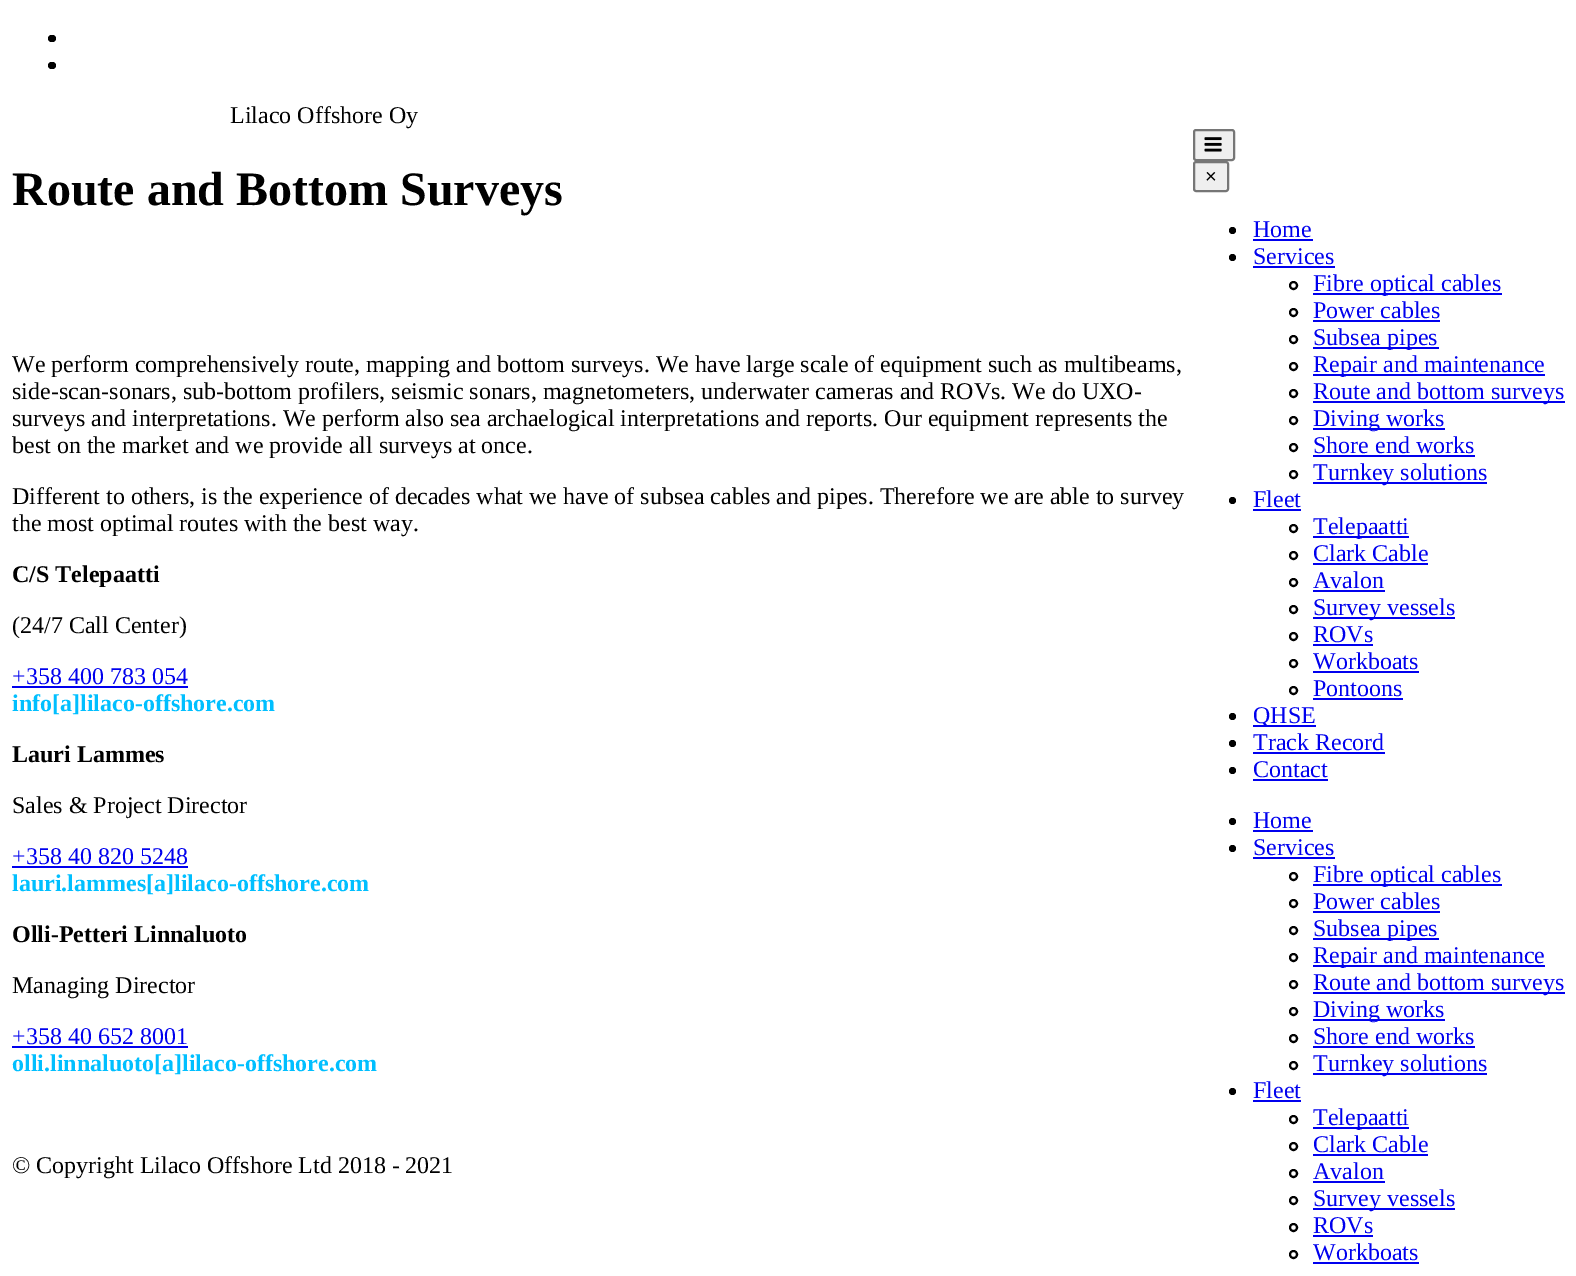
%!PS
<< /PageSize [1576 1276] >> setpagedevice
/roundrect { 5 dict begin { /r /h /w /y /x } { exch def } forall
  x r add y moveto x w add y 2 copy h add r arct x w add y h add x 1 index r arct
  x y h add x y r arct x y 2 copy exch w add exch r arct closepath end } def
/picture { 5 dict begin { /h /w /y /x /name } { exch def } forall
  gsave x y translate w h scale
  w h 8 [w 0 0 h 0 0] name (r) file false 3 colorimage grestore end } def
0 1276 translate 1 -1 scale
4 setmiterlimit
1 setgray
0 0 1576 1276 rectfill
0 setgray
48 35 8 7 3.5 roundrect fill
48 62 8 7 3.5 roundrect fill
/LiberationSerif-Regular [24 0 0 -24 0 0] selectfont
230 123 moveto (Lilaco Offshore Oy) show
0.937 setgray
1194 130 40 30 2 roundrect gsave fill grestore
0.463 setgray
2 setlinewidth
stroke
(img1.rgb) 1204 137 18 15 picture
0.937 setgray
1194 162 34 29 2 roundrect gsave fill grestore
0.463 setgray
stroke
/LiberationSans-Regular [20 0 0 -20 0 0] selectfont
0 setgray
1205 183 moveto (×) show
newpath 1232.5 230.5 3.5 0 360 arc closepath fill
/LiberationSerif-Regular [24 0 0 -24 0 0] selectfont
0 0 0.933 setrgbcolor
1253 237 moveto (Home) show
1253 239 60 2 rectfill
0 setgray
newpath 1232.5 257.5 3.5 0 360 arc closepath fill
0 0 0.933 setrgbcolor
1253 264 moveto (Services) show
1253 266 82 2 rectfill
0 setgray
newpath 1293.5 285.5 3.5 0 360 arc closepath stroke
0 0 0.933 setrgbcolor
1313 293 189 2 rectfill
1313 291 moveto (Fibre optical cables) show
0 setgray
newpath 1293.5 312.5 3.5 0 360 arc closepath stroke
0 0 0.933 setrgbcolor
1313 318 moveto (Power cables) show
1313 320 127 2 rectfill
0 setgray
newpath 1293.5 339.5 3.5 0 360 arc closepath stroke
0 0 0.933 setrgbcolor
1313 347 126 2 rectfill
1313 345 moveto (Subsea pipes) show
0 setgray
newpath 1293.5 366.5 3.5 0 360 arc closepath stroke
0 0 0.933 setrgbcolor
1313 374 232 2 rectfill
1313 372 moveto (Repair and maintenance) show
0 setgray
newpath 1293.5 393.5 3.5 0 360 arc closepath stroke
0 0 0.933 setrgbcolor
1313 401 252 2 rectfill
1313 399 moveto (Route and bottom surveys) show
0 setgray
newpath 1293.5 420.5 3.5 0 360 arc closepath stroke
0 0 0.933 setrgbcolor
1313 428 132 2 rectfill
1313 426 moveto (Diving works) show
0 setgray
newpath 1293.5 447.5 3.5 0 360 arc closepath stroke
0 0 0.933 setrgbcolor
1313 453 moveto (Shore end works) show
1313 455 162 2 rectfill
0 setgray
newpath 1293.5 474.5 3.5 0 360 arc closepath stroke
0 0 0.933 setrgbcolor
1313 482 174 2 rectfill
1313 480 moveto (Turnkey solutions) show
0 setgray
newpath 1232.5 500.5 3.5 0 360 arc closepath fill
0 0 0.933 setrgbcolor
1253 507 moveto (Fleet) show
1253 509 48 2 rectfill
0 setgray
newpath 1293.5 528.5 3.5 0 360 arc closepath stroke
0 0 0.933 setrgbcolor
1313 536 96 2 rectfill
1313 534 moveto (Telepaatti) show
0 setgray
newpath 1293.5 555.5 3.5 0 360 arc closepath stroke
0 0 0.933 setrgbcolor
1313 561 moveto (Clark Cable) show
1313 563 115 2 rectfill
0 setgray
newpath 1293.5 582.5 3.5 0 360 arc closepath stroke
0 0 0.933 setrgbcolor
1313 588 moveto (Avalon) show
1313 590 72 2 rectfill
0 setgray
newpath 1293.5 609.5 3.5 0 360 arc closepath stroke
0 0 0.933 setrgbcolor
1313 617 142 2 rectfill
1313 615 moveto (Survey vessels) show
0 setgray
newpath 1293.5 636.5 3.5 0 360 arc closepath stroke
0 0 0.933 setrgbcolor
1313 642 moveto (ROVs) show
1313 644 60 2 rectfill
0 setgray
newpath 1293.5 663.5 3.5 0 360 arc closepath stroke
0 0 0.933 setrgbcolor
1313 669 moveto (Workboats) show
1313 671 106 2 rectfill
0 setgray
newpath 1293.5 690.5 3.5 0 360 arc closepath stroke
0 0 0.933 setrgbcolor
1313 696 moveto (Pontoons) show
1313 698 90 2 rectfill
0 setgray
newpath 1232.5 716.5 3.5 0 360 arc closepath fill
0 0 0.933 setrgbcolor
1253 725 63 2 rectfill
1253 723 moveto (QHSE) show
0 setgray
newpath 1232.5 743.5 3.5 0 360 arc closepath fill
0 0 0.933 setrgbcolor
1253 750 moveto (Track Record) show
1253 752 132 2 rectfill
0 setgray
newpath 1232.5 770.5 3.5 0 360 arc closepath fill
0 0 0.933 setrgbcolor
1253 777 moveto (Contact) show
1253 779 75 2 rectfill
0 setgray
newpath 1232.5 821.5 3.5 0 360 arc closepath fill
0 0 0.933 setrgbcolor
1253 828 moveto (Home) show
1253 830 60 2 rectfill
0 setgray
newpath 1232.5 848.5 3.5 0 360 arc closepath fill
0 0 0.933 setrgbcolor
1253 855 moveto (Services) show
1253 857 82 2 rectfill
0 setgray
newpath 1293.5 876.5 3.5 0 360 arc closepath stroke
0 0 0.933 setrgbcolor
1313 884 189 2 rectfill
1313 882 moveto (Fibre optical cables) show
0 setgray
newpath 1293.5 903.5 3.5 0 360 arc closepath stroke
0 0 0.933 setrgbcolor
1313 909 moveto (Power cables) show
1313 911 127 2 rectfill
0 setgray
newpath 1293.5 930.5 3.5 0 360 arc closepath stroke
0 0 0.933 setrgbcolor
1313 938 126 2 rectfill
1313 936 moveto (Subsea pipes) show
0 setgray
newpath 1293.5 957.5 3.5 0 360 arc closepath stroke
0 0 0.933 setrgbcolor
1313 965 232 2 rectfill
1313 963 moveto (Repair and maintenance) show
0 setgray
newpath 1293.5 984.5 3.5 0 360 arc closepath stroke
0 0 0.933 setrgbcolor
1313 992 252 2 rectfill
1313 990 moveto (Route and bottom surveys) show
0 setgray
newpath 1293.5 1011.5 3.5 0 360 arc closepath stroke
0 0 0.933 setrgbcolor
1313 1019 132 2 rectfill
1313 1017 moveto (Diving works) show
0 setgray
newpath 1293.5 1038.5 3.5 0 360 arc closepath stroke
0 0 0.933 setrgbcolor
1313 1044 moveto (Shore end works) show
1313 1046 162 2 rectfill
0 setgray
newpath 1293.5 1065.5 3.5 0 360 arc closepath stroke
0 0 0.933 setrgbcolor
1313 1073 174 2 rectfill
1313 1071 moveto (Turnkey solutions) show
0 setgray
newpath 1232.5 1091.5 3.5 0 360 arc closepath fill
0 0 0.933 setrgbcolor
1253 1098 moveto (Fleet) show
1253 1100 48 2 rectfill
0 setgray
newpath 1293.5 1119.5 3.5 0 360 arc closepath stroke
0 0 0.933 setrgbcolor
1313 1127 96 2 rectfill
1313 1125 moveto (Telepaatti) show
0 setgray
newpath 1293.5 1146.5 3.5 0 360 arc closepath stroke
0 0 0.933 setrgbcolor
1313 1152 moveto (Clark Cable) show
1313 1154 115 2 rectfill
0 setgray
newpath 1293.5 1173.5 3.5 0 360 arc closepath stroke
0 0 0.933 setrgbcolor
1313 1179 moveto (Avalon) show
1313 1181 72 2 rectfill
0 setgray
newpath 1293.5 1200.5 3.5 0 360 arc closepath stroke
0 0 0.933 setrgbcolor
1313 1208 142 2 rectfill
1313 1206 moveto (Survey vessels) show
0 setgray
newpath 1293.5 1227.5 3.5 0 360 arc closepath stroke
0 0 0.933 setrgbcolor
1313 1233 moveto (ROVs) show
1313 1235 60 2 rectfill
0 setgray
newpath 1293.5 1254.5 3.5 0 360 arc closepath stroke
0 0 0.933 setrgbcolor
1313 1260 moveto (Workboats) show
1313 1262 106 2 rectfill
/LiberationSerif-Bold [48 0 0 -48 0 0] selectfont
0 setgray
12 205 moveto (Route and Bottom Surveys) show
/LiberationSerif-Regular [24 0 0 -24 0 0] selectfont
12 372 moveto (We perform comprehensively route, mapping and bottom surveys. We have large scale of equipment such as multibeams,) show
12 399 moveto (side-scan-sonars, sub-bottom profilers, seismic sonars, magnetometers, underwater cameras and ROVs. We do UXO-) show
12 426 moveto (surveys and interpretations. We perform also sea archaelogical interpretations and reports. Our equipment represents the) show
12 453 moveto (best on the market and we provide all surveys at once.) show
12 504 moveto (Different to others, is the experience of decades what we have of subsea cables and pipes. Therefore we are able to survey) show
12 531 moveto (the most optimal routes with the best way.) show
/LiberationSerif-Bold [24 0 0 -24 0 0] selectfont
12 582 moveto (C/S Telepaatti) show
/LiberationSerif-Regular [24 0 0 -24 0 0] selectfont
12 633 moveto (\(24/7 Call Center\)) show
0 0 0.933 setrgbcolor
12 684 moveto (+358 400 783 054) show
12 686 176 2 rectfill
/LiberationSerif-Bold [24 0 0 -24 0 0] selectfont
0 0.749 1 setrgbcolor
12 711 moveto (info[a]lilaco-offshore.com) show
0 setgray
12 762 moveto (Lauri Lammes) show
/LiberationSerif-Regular [24 0 0 -24 0 0] selectfont
12 813 moveto (Sales & Project Director) show
0 0 0.933 setrgbcolor
12 864 moveto (+358 40 820 5248) show
12 866 176 2 rectfill
/LiberationSerif-Bold [24 0 0 -24 0 0] selectfont
0 0.749 1 setrgbcolor
12 891 moveto (lauri.lammes[a]lilaco-offshore.com) show
0 setgray
12 942 moveto (Olli-Petteri Linnaluoto) show
/LiberationSerif-Regular [24 0 0 -24 0 0] selectfont
12 993 moveto (Managing Director) show
0 0 0.933 setrgbcolor
12 1044 moveto (+358 40 652 8001) show
12 1046 176 2 rectfill
/LiberationSerif-Bold [24 0 0 -24 0 0] selectfont
0 0.749 1 setrgbcolor
12 1071 moveto (olli.linnaluoto[a]lilaco-offshore.com) show
/LiberationSerif-Regular [24 0 0 -24 0 0] selectfont
0 setgray
12 1173 moveto (© Copyright Lilaco Offshore Ltd 2018 - 2021) show
showpage
